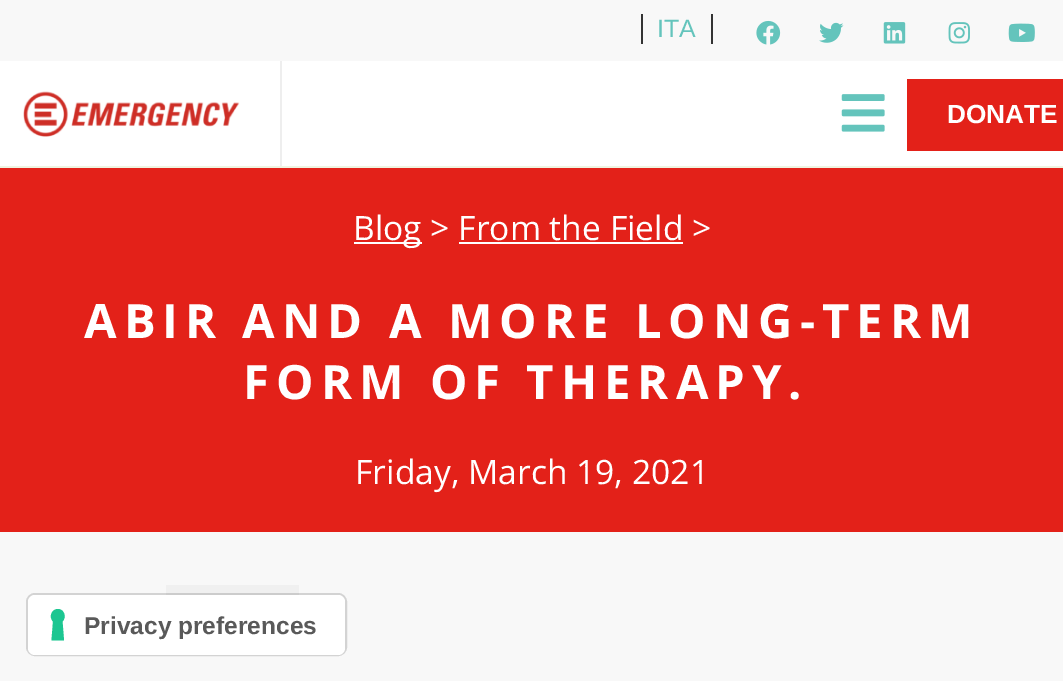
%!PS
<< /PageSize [1063 681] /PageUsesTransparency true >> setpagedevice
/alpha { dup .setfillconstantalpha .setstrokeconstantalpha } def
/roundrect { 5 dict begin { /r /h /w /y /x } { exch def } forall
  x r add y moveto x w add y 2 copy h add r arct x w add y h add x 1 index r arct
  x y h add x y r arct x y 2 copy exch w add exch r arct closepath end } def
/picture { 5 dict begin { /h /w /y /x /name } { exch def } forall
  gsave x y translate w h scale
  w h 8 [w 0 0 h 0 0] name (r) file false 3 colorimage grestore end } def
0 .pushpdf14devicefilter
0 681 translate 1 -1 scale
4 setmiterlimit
1 setgray
0 0 1063 681 rectfill
0.937 0.953 0.882 setrgbcolor
0 166 1063 2 rectfill
0.973 setgray
0 0 1063 61 rectfill
0.2 setgray
711 14 2 30 rectfill
641 14 2 30 rectfill
/LiberationSans-Regular [25 0 0 -25 0 0] selectfont
0.392 0.769 0.737 setrgbcolor
657 37 moveto (ITA) show
(img1.rgb) 756 20 25 25 picture
(img2.rgb) 819 22 25 21 picture
(img3.rgb) 883 22 23 22 picture
(img4.rgb) 948 22 22 22 picture
(img5.rgb) 1008 23 27 19 picture
0.933 setgray
280 61 2 105 rectfill
(img6.rgb) 23 91 217 46 picture
(img7.rgb) 841 94 44 38 picture
0.89 0.129 0.098 setrgbcolor
907 79 156 72 rectfill
/LiberationSans-Bold [26.25 0 0 -26.25 0 0] selectfont
1 setgray
947 123 moveto (DONATE) show
0.89 0.129 0.098 setrgbcolor
0 168 1063 364 rectfill
1 setgray
354 242 68 2 rectfill
/OpenSans-Regular [33.6 0 0 -33.6 0 0] selectfont
353 240 moveto (Blog > From the Field >) show
459 242 224 2 rectfill
/OpenSans-Bold [47.25 0 0 -47.25 0 0] selectfont
84 338 moveto 7 0 (ABIR AND A MORE LONG-TERM) ashow
243 399 moveto 7 0 (FORM OF THERAPY.) ashow
/OpenSans-Regular [33.6 0 0 -33.6 0 0] selectfont
355 484 moveto (Friday, March 19, 2021) show
0.973 setgray
0 532 1063 149 rectfill
0.941 setgray
166 585 133 10 rectfill
0.15 alpha
0 setgray
2 setlinewidth
27 594 319 61 8 roundrect stroke
1 alpha
1 setgray
28 595 317 60 7 roundrect fill
0.11 0.776 0.569 setrgbcolor
newpath 58 609 moveto 64 609 67 617 62.5 621.5 curveto 64 640.5 lineto 51.5 640.5 lineto 53 621.5 lineto 48.5 617 51.5 609 58 609 curveto closepath eofill
/LiberationSans-Bold [24.5 0 0 -24.5 0 0] selectfont
0.349 setgray
84 634 moveto (Privacy preferences) show
.poppdf14devicefilter showpage
